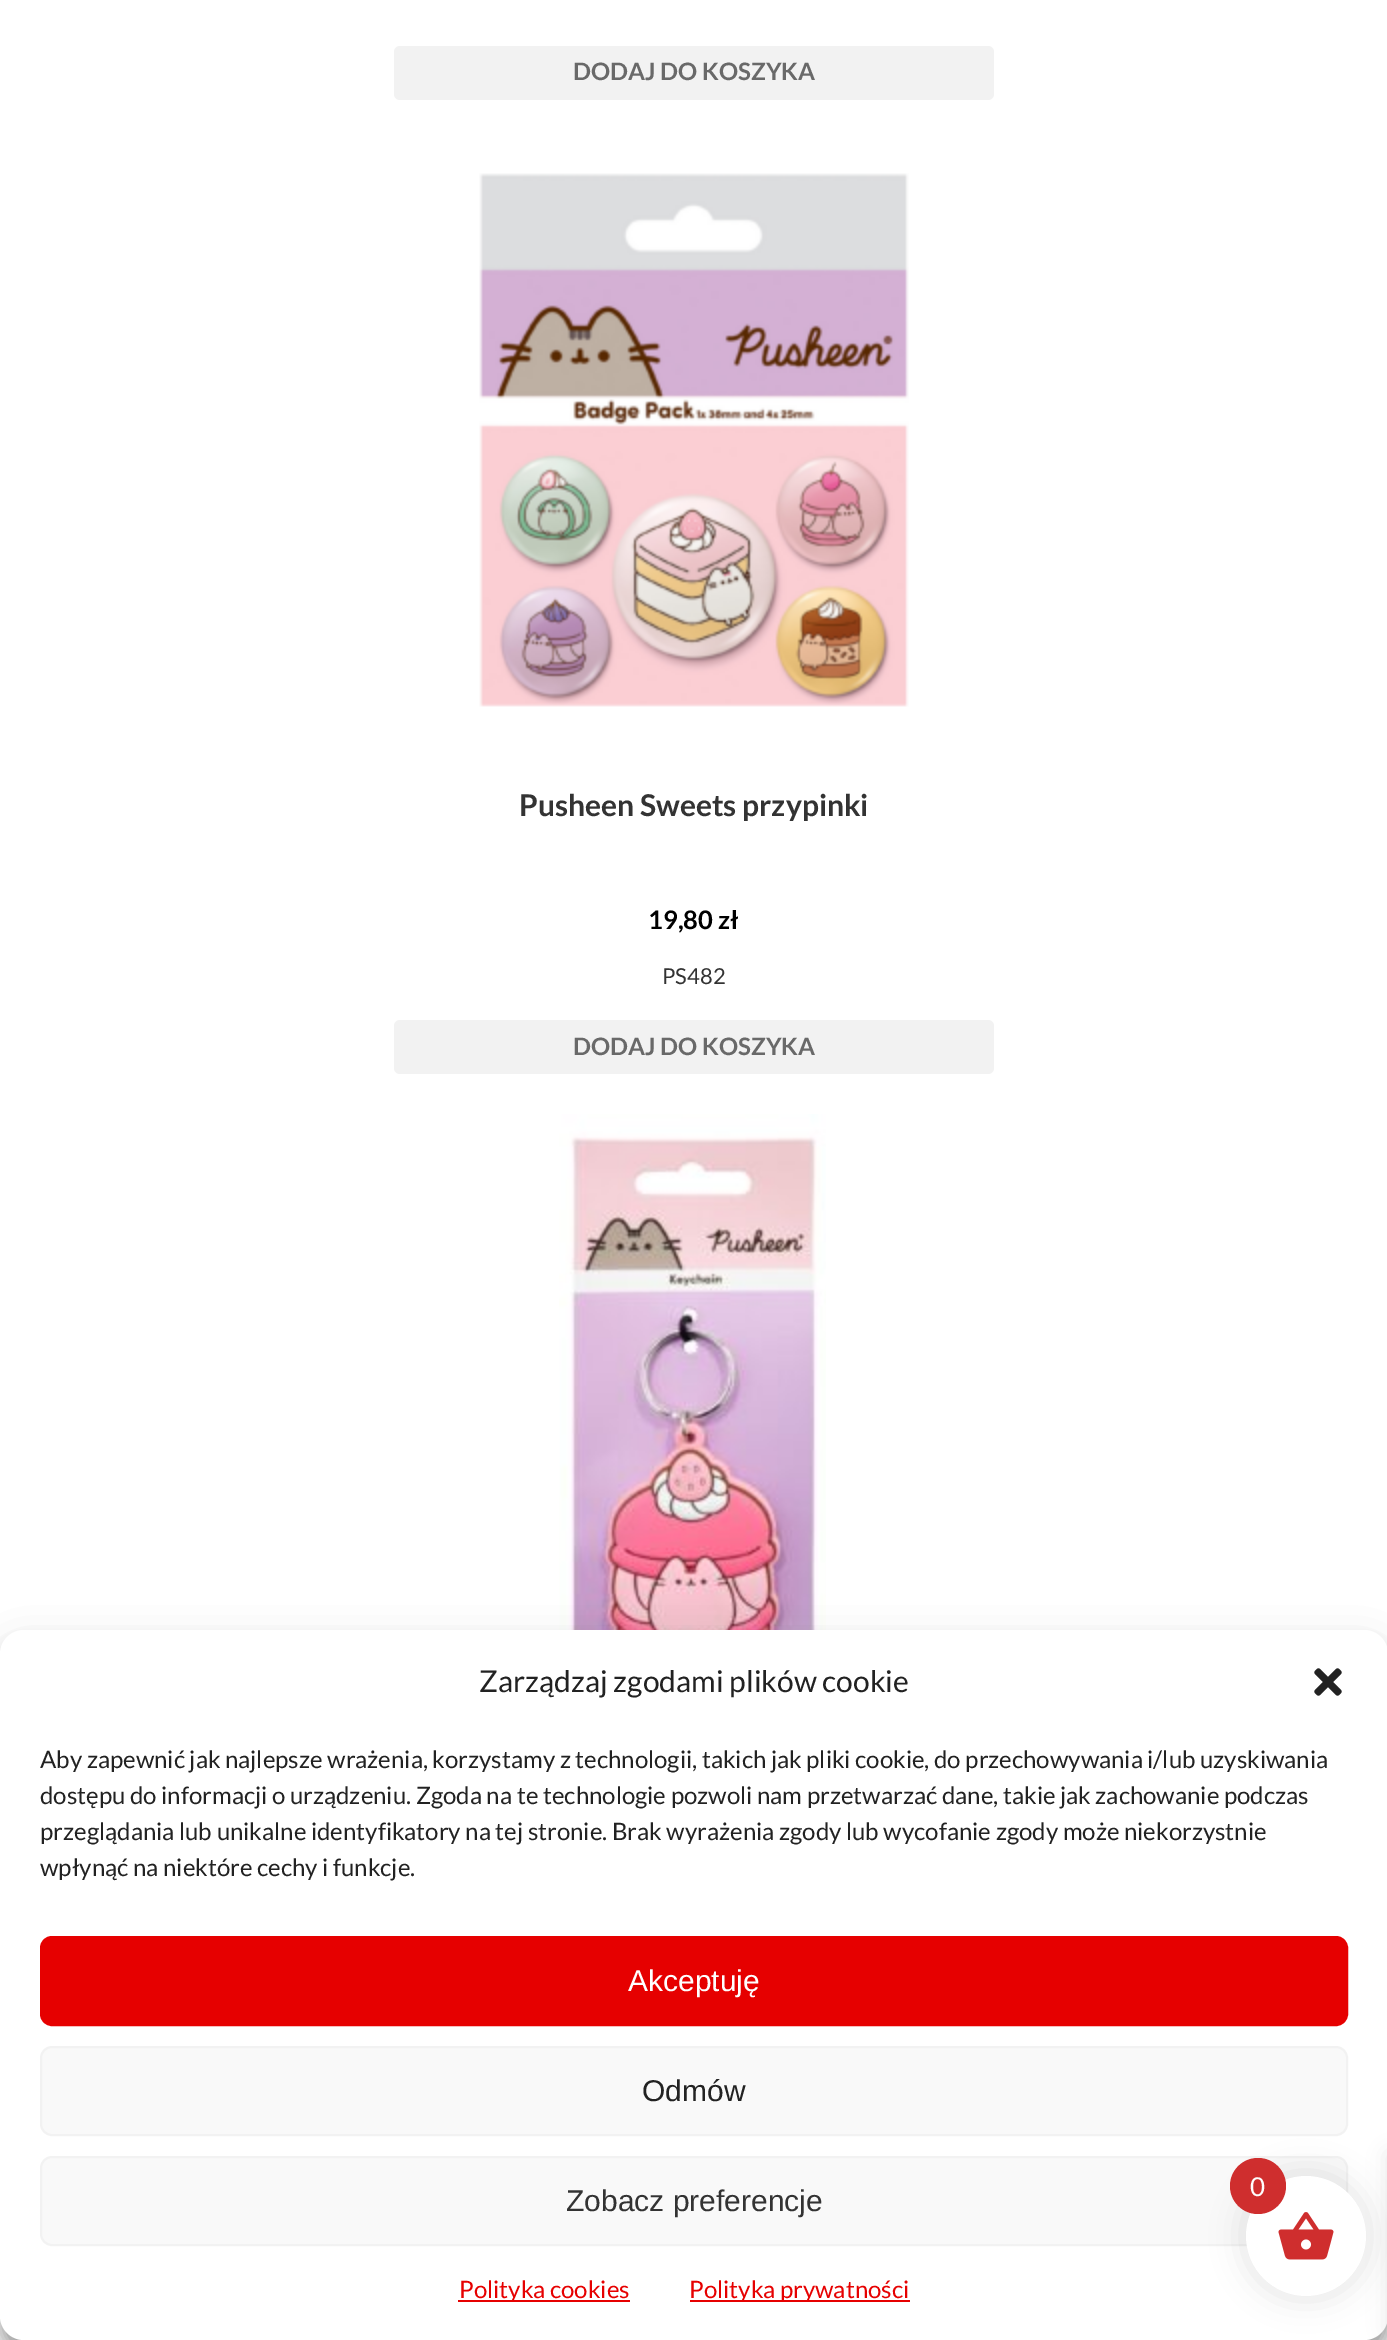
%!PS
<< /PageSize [1387 2340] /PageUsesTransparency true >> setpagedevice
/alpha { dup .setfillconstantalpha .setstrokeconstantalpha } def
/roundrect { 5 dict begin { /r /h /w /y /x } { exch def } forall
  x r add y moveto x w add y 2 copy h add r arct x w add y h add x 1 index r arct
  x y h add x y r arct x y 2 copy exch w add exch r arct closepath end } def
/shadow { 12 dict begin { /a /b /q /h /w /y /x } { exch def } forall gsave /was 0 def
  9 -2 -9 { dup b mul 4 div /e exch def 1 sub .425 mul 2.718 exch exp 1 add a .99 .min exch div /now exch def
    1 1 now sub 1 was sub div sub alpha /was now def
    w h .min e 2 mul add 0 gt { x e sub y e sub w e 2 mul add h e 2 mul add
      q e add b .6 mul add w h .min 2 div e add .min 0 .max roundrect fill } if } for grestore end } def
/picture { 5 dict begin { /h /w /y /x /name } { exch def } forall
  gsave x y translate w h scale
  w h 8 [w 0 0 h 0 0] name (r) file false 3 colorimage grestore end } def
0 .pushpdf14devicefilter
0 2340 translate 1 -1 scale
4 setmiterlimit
1 setgray
0 0 1387 2340 rectfill
0.949 setgray
394 46 600 54 6 roundrect fill
/Lato-Bold [24 0 0 -24 0 0] selectfont
0.412 setgray
573 80 moveto (DODAJ DO KOSZYKA) show
(img1.rgb) 479 173 430 534 picture
/Lato-Bold [30 0 0 -30 0 0] selectfont
0.2 setgray
519 816 moveto (Pusheen Sweets przypinki) show
/Lato-Bold [25.5 0 0 -25.5 0 0] selectfont
0 setgray
648 929 moveto (19,80 zł) show
/Lato-Regular [22 0 0 -22 0 0] selectfont
0.2 setgray
662 984 moveto (PS482) show
0.949 setgray
394 1020 600 54 6 roundrect fill
/Lato-Bold [24 0 0 -24 0 0] selectfont
0.412 setgray
573 1055 moveto (DODAJ DO KOSZYKA) show
(img2.rgb) 559 1114 267 516 picture
0 setgray
0 1642 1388 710 24 6 0.23 shadow
0 1650 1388 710 24 20 0.19 shadow
1 setgray
0 1630 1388 710 24 roundrect fill
/Lato-Regular [30 0 0 -30 0 0] selectfont
0.133 setgray
479 1692 moveto (Zarządzaj zgodami plików cookie) show
(img3.rgb) 1314 1668 28 28 picture
/Lato-Regular [24 0 0 -24 0 0] selectfont
40 1768 moveto (Aby zapewnić jak najlepsze wrażenia, korzystamy z technologii, takich jak pliki cookie, do przechowywania i/lub uzyskiwania) show
40 1804 moveto (dostępu do informacji o urządzeniu. Zgoda na te technologie pozwoli nam przetwarzać dane, takie jak zachowanie podczas) show
40 1840 moveto (przeglądania lub unikalne identyfikatory na tej stronie. Brak wyrażenia zgody lub wycofanie zgody może niekorzystnie) show
40 1876 moveto (wpłynąć na niektóre cechy i funkcje.) show
0.902 0 0 setrgbcolor
41 1937 1306 88 11 roundrect gsave fill grestore
2 setlinewidth
stroke
/LiberationSans-Regular [30 0 0 -30 0 0] selectfont
1 setgray
628 1991 moveto (Akceptuję) show
0.976 setgray
41 2047 1306 88 11 roundrect gsave fill grestore
0.949 setgray
stroke
0.133 setgray
642 2101 moveto (Odmów) show
0.976 setgray
41 2157 1306 88 11 roundrect gsave fill grestore
0.949 setgray
stroke
0.2 setgray
566 2211 moveto (Zobacz preferencje) show
0.902 0 0 setrgbcolor
458 2300 172 2 rectfill
/Lato-Regular [24 0 0 -24 0 0] selectfont
459 2298 moveto (Polityka cookies) show
690 2300 220 2 rectfill
689 2298 moveto (Polityka prywatności) show
0 setgray
1242 2172 128 128 64 15 0.1 shadow
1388 2154 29 176 0 10 0.1 shadow
1 setgray
newpath 1306 2236 60 0 360 arc closepath fill
(img4.rgb) 1278 2212 56 48 picture
0.812 0.18 0.18 setrgbcolor
newpath 1258 2186 28 0 360 arc closepath fill
/Lato-Regular [26 0 0 -26 0 0] selectfont
1 setgray
1250 2196 moveto (0) show
.poppdf14devicefilter showpage
